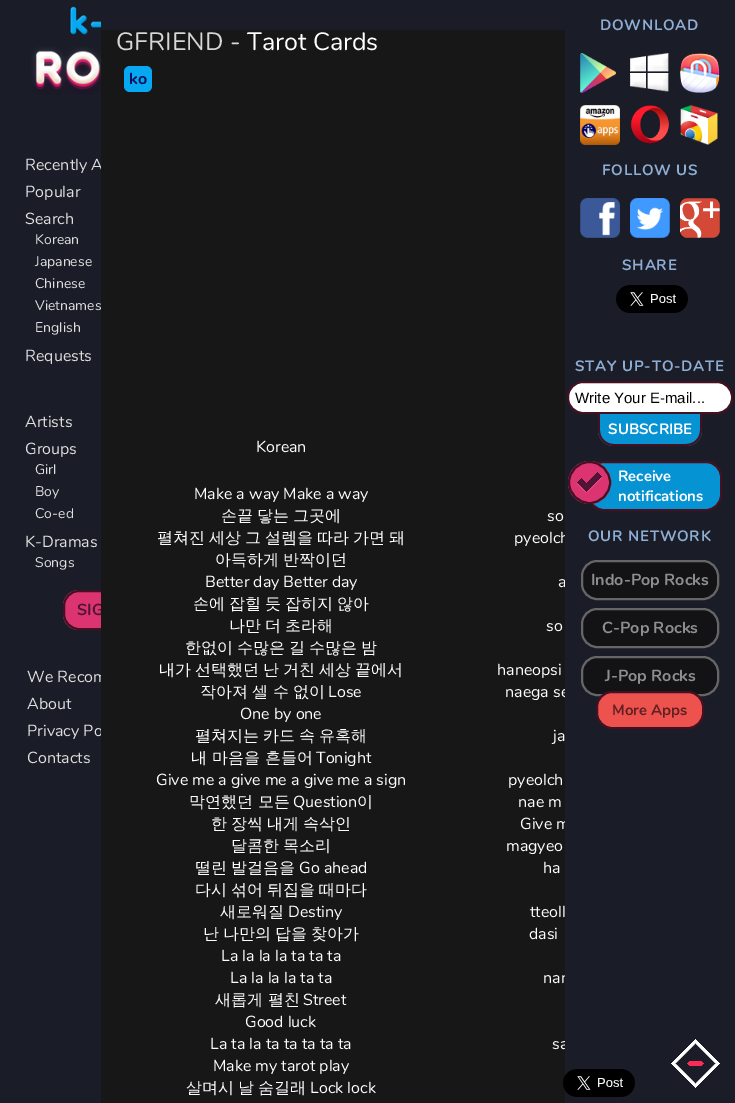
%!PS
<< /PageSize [735 1103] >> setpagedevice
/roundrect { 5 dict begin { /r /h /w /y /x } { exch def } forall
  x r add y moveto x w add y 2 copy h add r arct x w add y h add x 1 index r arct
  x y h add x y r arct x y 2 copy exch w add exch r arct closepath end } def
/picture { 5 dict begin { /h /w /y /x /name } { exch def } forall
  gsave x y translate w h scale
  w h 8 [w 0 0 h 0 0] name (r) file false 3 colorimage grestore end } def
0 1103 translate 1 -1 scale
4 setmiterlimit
0.102 0.114 0.153 setrgbcolor
0 0 735 1103 rectfill
(img1.rgb) 31 6 70 89 picture
/Nunito-Regular [16 0 0 -16 0 0] selectfont
0.875 setgray
25 170 moveto (Recently A) show
25 197 moveto (Popular) show
25 224 moveto (Search) show
/Nunito-Regular [14 0 0 -14 0 0] selectfont
35 244 moveto (Korean) show
35 266 moveto (Japanese) show
35 288 moveto (Chinese) show
35 310 moveto (Vietnames) show
35 332 moveto (English) show
/Nunito-Regular [16 0 0 -16 0 0] selectfont
25 361 moveto (Requests) show
25 427 moveto (Artists) show
25 454 moveto (Groups) show
/Nunito-Regular [14 0 0 -14 0 0] selectfont
35 474 moveto (Girl) show
35 496 moveto (Boy) show
35 518 moveto (Co-ed) show
/Nunito-Regular [16 0 0 -16 0 0] selectfont
25 547 moveto (K-Dramas) show
/Nunito-Regular [14 0 0 -14 0 0] selectfont
35 567 moveto (Songs) show
0.859 0.204 0.439 setrgbcolor
newpath 79 590 moveto 101 590 lineto 101 630 lineto 79 630 lineto 70 630 63 623 63 614 curveto 63 606 lineto 63 597 70 590 79 590 curveto closepath fill
0.267 0.067 0.137 setrgbcolor
2 setlinewidth
64 591 86 38 15 roundrect stroke
/Nunito-Bold [16 0 0 -16 0 0] selectfont
0.318 0.078 0.212 setrgbcolor
77 615 moveto (SIG) show
/Nunito-Regular [16 0 0 -16 0 0] selectfont
0.875 setgray
27 682 moveto (We Recom) show
27 709 moveto (About) show
27 736 moveto (Privacy Po) show
27 763 moveto (Contacts) show
0.09 0.09 0.094 setrgbcolor
101 30 464 1073 rectfill
/Nunito-Regular [25 0 0 -25 0 0] selectfont
0.843 setgray
116 50 moveto (GFRIEND -) show
1 setgray
247 50 moveto (Tarot Cards) show
0.027 0.659 0.949 setrgbcolor
124 66 28 26 6 roundrect fill
/Nunito-Bold [16 0 0 -16 0 0] selectfont
0.027 0.059 0.341 setrgbcolor
129 84 moveto (ko) show
/Nunito-Regular [16 0 0 -16 0 0] selectfont
1 setgray
256 452 moveto (Korean) show
194 499 moveto (Make a way Make a way) show
/WenQuanYiZenHei-Medium [16 0 0 -16 0 0] selectfont
221 521 moveto -0.75 0 32 (손끝 닿는 그곳에) widthshow
157 543 moveto -0.75 0 32 (펼쳐진 세상 그 설렘을 따라 가면 돼) widthshow
215 565 moveto -0.75 0 32 (아득하게 반짝이던) widthshow
/Nunito-Regular [16 0 0 -16 0 0] selectfont
205 587 moveto (Better day Better day) show
/WenQuanYiZenHei-Medium [16 0 0 -16 0 0] selectfont
193 609 moveto -0.75 0 32 (손에 잡힐 듯 잡히지 않아) widthshow
229 631 moveto -0.75 0 32 (나만 더 초라해) widthshow
185 653 moveto -0.75 0 32 (한없이 수많은 길 수많은 밤) widthshow
159 675 moveto -0.75 0 32 (내가 선택했던 난 거친 세상 끝에서) widthshow
200 697 moveto -0.5 0 32 (작아져 셀 수 없이) widthshow
/Nunito-Regular [16 0 0 -16 0 0] selectfont
328 697 moveto (Lose) show
240 719 moveto (One by one) show
/WenQuanYiZenHei-Medium [16 0 0 -16 0 0] selectfont
195 741 moveto -0.75 0 32 (펼쳐지는 카드 속 유혹해) widthshow
191 763 moveto (내 마음을 흔들어) show
/Nunito-Regular [16 0 0 -16 0 0] selectfont
316 763 moveto (Tonight) show
156 785 moveto (Give me a give me a give me a sign) show
/WenQuanYiZenHei-Medium [16 0 0 -16 0 0] selectfont
189 807 moveto (막연했던 모든) show
/Nunito-Regular [16 0 0 -16 0 0] selectfont
293 807 moveto (Question) show
/WenQuanYiZenHei-Medium [16 0 0 -16 0 0] selectfont
357 807 moveto (이) show
211 829 moveto -0.75 0 32 (한 장씩 내게 속삭인) widthshow
231 851 moveto -0.75 0 32 (달콤한 목소리) widthshow
195 873 moveto (떨린) show
231 873 moveto (발걸음을) show
/Nunito-Regular [16 0 0 -16 0 0] selectfont
299 873 moveto (Go ahead) show
/WenQuanYiZenHei-Medium [16 0 0 -16 0 0] selectfont
195 895 moveto -0.75 0 32 (다시 섞어 뒤집을 때마다) widthshow
220 917 moveto (새로워질) show
/Nunito-Regular [16 0 0 -16 0 0] selectfont
288 917 moveto (Destiny) show
/WenQuanYiZenHei-Medium [16 0 0 -16 0 0] selectfont
203 939 moveto -0.75 0 32 (난 나만의 답을 찾아가) widthshow
/Nunito-Regular [16 0 0 -16 0 0] selectfont
221 961 moveto (La la la la ta ta ta) show
230 983 moveto (La la la la ta ta) show
/WenQuanYiZenHei-Medium [16 0 0 -16 0 0] selectfont
215 1005 moveto (새롭게 펼친) show
/Nunito-Regular [16 0 0 -16 0 0] selectfont
303 1005 moveto (Street) show
245 1027 moveto (Good luck) show
210 1049 moveto (La ta la ta ta ta ta ta) show
213 1071 moveto (Make my tarot play) show
/WenQuanYiZenHei-Medium [16 0 0 -16 0 0] selectfont
186 1093 moveto (살며시) show
238 1093 moveto (날) show
258 1093 moveto (숨길래) show
/Nunito-Regular [16 0 0 -16 0 0] selectfont
310 1093 moveto (Lock lock) show
547 521 moveto (so) show
gsave
485 473 80 630 rectclip
514 543 moveto (pyeolch) show
558 587 moveto (a) show
grestore
546 631 moveto (so) show
497 675 moveto (haneopsi) show
gsave
485 473 80 630 rectclip
505 697 moveto (naega se) show
grestore
553 741 moveto (ja) show
508 785 moveto (pyeolch) show
518 807 moveto (nae m) show
gsave
485 473 80 630 rectclip
520 829 moveto (Give m) show
grestore
506 851 moveto (magyeo) show
543 873 moveto (ha) show
530 917 moveto (tteoll) show
529 939 moveto (dasi) show
gsave
485 473 80 630 rectclip
543 983 moveto (nan) show
552 1049 moveto (sa) show
grestore
(img2.rgb) 563 1069 72 28 picture
(img3.rgb) 671 1039 49 49 picture
/Nunito-Bold [15 0 0 -15 0 0] selectfont
0.561 0.682 0.831 setrgbcolor
600 30 moveto 0.75 0 (DOWNLOAD) ashow
(img4.rgb) 580 53 36 40 picture
(img5.rgb) 630 53 39 39 picture
(img6.rgb) 680 53 40 40 picture
(img7.rgb) 580 105 40 40 picture
(img8.rgb) 630 105 40 39 picture
(img9.rgb) 680 105 38 40 picture
602 175 moveto 0.75 0 (FOLLOW US) ashow
(img10.rgb) 580 198 40 40 picture
(img11.rgb) 630 198 40 40 picture
(img12.rgb) 680 198 40 40 picture
622 270 moveto 0.75 0 (SHARE) ashow
(img13.rgb) 616 285 72 28 picture
575 371 moveto 0.75 0 (STAY UP-TO-DATE) ashow
1 setgray
568 382 164 31 15 roundrect gsave fill grestore
0.267 0.067 0.137 setrgbcolor
stroke
/LiberationSans-Regular [15 0 0 -15 0 0] selectfont
0 setgray
575 403 moveto (Write Your E-mail...) show
0.024 0.576 0.831 setrgbcolor
newpath 598 414 moveto 702 414 lineto 702 430 lineto 702 439 695 446 686 446 curveto 614 446 lineto 605 446 598 439 598 430 curveto closepath fill
0.267 0.067 0.137 setrgbcolor
newpath 598 414 moveto 702 414 lineto 702 430 lineto 702 439 695 446 686 446 curveto 614 446 lineto 605 446 598 439 598 430 curveto closepath 600 414 moveto 700 414 lineto 700 430 lineto 700 438 694 444 686 444 curveto 614 444 lineto 606 444 600 438 600 430 curveto closepath eofill
/Nunito-Bold [15 0 0 -15 0 0] selectfont
1 setgray
608 434 moveto (SUBSCRIBE) show
0.024 0.576 0.831 setrgbcolor
589 462 132 48 15 roundrect gsave fill grestore
0.267 0.067 0.137 setrgbcolor
stroke
0.859 0.204 0.439 setrgbcolor
newpath 589.5 482.5 21.5 0 360 arc closepath fill
(img14.rgb) 576 472 27 22 picture
0.267 0.067 0.137 setrgbcolor
newpath 589.5 482.5 20.5 0 360 arc closepath stroke
1 setgray
618 481 moveto (Receive) show
618 501 moveto (notifications) show
0.561 0.682 0.831 setrgbcolor
588 541 moveto 0.75 0 (OUR NETWORK) ashow
0.075 0.075 0.082 setrgbcolor
582 561 136 38 15 roundrect gsave fill grestore
0.4 setgray
stroke
/Nunito-Bold [16 0 0 -16 0 0] selectfont
0.557 setgray
591 585 moveto (Indo-Pop Rocks) show
0.075 0.075 0.082 setrgbcolor
582 609 136 38 15 roundrect gsave fill grestore
0.4 setgray
stroke
0.557 setgray
602 633 moveto (C-Pop Rocks) show
0.075 0.075 0.082 setrgbcolor
582 657 136 38 15 roundrect gsave fill grestore
0.4 setgray
stroke
0.557 setgray
605 681 moveto (J-Pop Rocks) show
0.929 0.322 0.31 setrgbcolor
597 692 106 36 15 roundrect gsave fill grestore
0.267 0.067 0.137 setrgbcolor
stroke
/Nunito-Bold [15 0 0 -15 0 0] selectfont
0.38 0.129 0.125 setrgbcolor
612 715 moveto (More Apps) show
showpage
